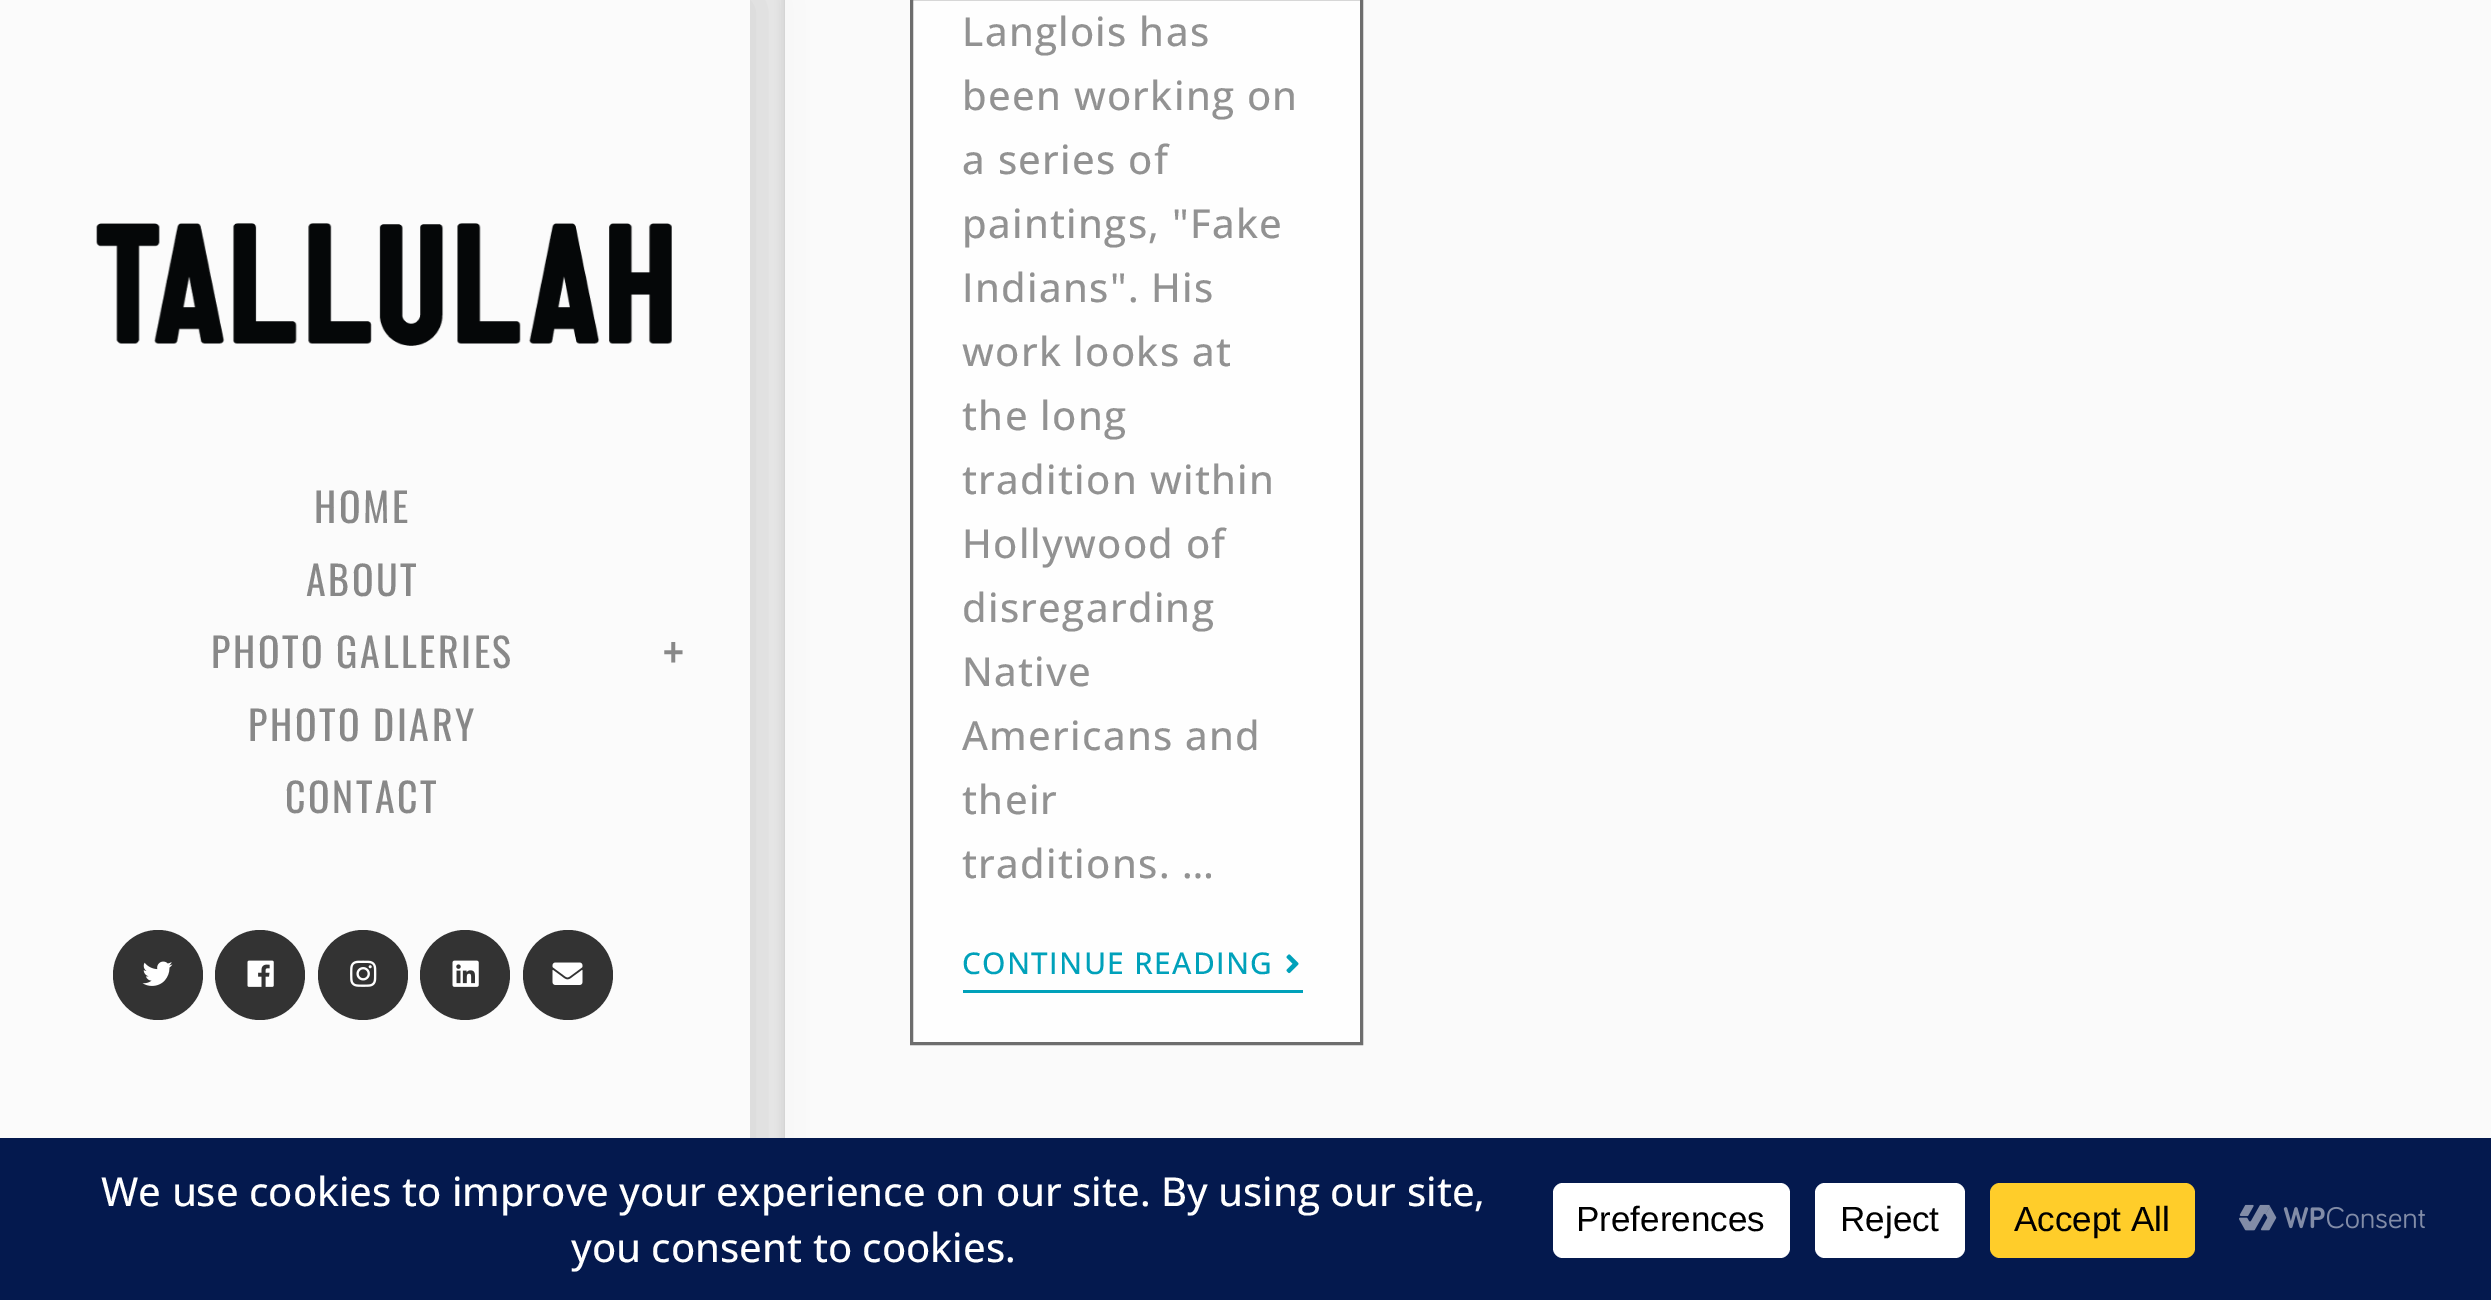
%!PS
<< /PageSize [2491 1300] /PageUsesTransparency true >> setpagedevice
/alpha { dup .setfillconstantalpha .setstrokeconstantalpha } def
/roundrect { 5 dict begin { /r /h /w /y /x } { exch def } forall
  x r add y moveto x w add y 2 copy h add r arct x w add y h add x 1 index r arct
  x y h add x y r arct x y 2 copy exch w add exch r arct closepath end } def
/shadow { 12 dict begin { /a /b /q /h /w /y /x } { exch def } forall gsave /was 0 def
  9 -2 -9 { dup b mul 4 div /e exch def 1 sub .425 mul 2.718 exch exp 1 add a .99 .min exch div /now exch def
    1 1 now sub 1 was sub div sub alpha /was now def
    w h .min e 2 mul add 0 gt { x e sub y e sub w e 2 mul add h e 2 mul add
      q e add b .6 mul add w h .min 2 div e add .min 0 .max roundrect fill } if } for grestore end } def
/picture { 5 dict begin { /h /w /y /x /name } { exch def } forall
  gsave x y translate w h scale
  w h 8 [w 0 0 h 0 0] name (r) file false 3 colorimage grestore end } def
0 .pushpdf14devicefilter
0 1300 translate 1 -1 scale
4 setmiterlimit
0.914 setgray
0 0 2491 1300 rectfill
0 setgray
785 -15 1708 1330 0 5 0.15 shadow
0.98 setgray
785 0 1706 1138 rectfill
0 setgray
0 0 750 1300 0 25 0.1 shadow
0.984 setgray
0 0 750 1138 rectfill
(img1.rgb) 96 223 576 123 picture
/Oswald-Regular [40 0 0 -40 0 0] selectfont
0.533 setgray
314 523 moveto 2.5 0 (HOME) ashow
306 596 moveto 2.5 0 (ABOUT) ashow
211 668 moveto 2.5 0 (PHOTO GALLERIES) ashow
/Oswald-Regular [50 0 0 -50 0 0] selectfont
663 673 moveto 2.5 0 (+) ashow
/Oswald-Regular [40 0 0 -40 0 0] selectfont
248 741 moveto 2.5 0 (PHOTO DIARY) ashow
285 813 moveto 2.5 0 (CONTACT) ashow
0.2 setgray
newpath 158 975 45 0 360 arc closepath fill
(img2.rgb) 142 961 31 25 picture
newpath 260 975 45 0 360 arc closepath fill
(img3.rgb) 247 960 27 27 picture
newpath 363 975 45 0 360 arc closepath fill
(img4.rgb) 350 960 27 27 picture
newpath 465 975 45 0 360 arc closepath fill
(img5.rgb) 452 960 27 27 picture
newpath 568 975 45 0 360 arc closepath fill
(img6.rgb) 552 962 31 23 picture
0.996 setgray
newpath 911.5 -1.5 moveto 1361.5 -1.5 lineto 1361.5 1043.5 lineto 911.5 1043.5 lineto closepath gsave fill grestore
0.427 setgray
3 setlinewidth
stroke
/OpenSans-Medium [40 0 0 -40 0 0] selectfont
0.573 setgray
962 46 moveto 1.25 0 (Langlois has) ashow
962 110 moveto 1.25 0 (been working on) ashow
962 174 moveto 1.25 0 (a series of) ashow
962 238 moveto 1.25 0 (paintings, "Fake) ashow
962 302 moveto 1.25 0 (Indians". His) ashow
962 366 moveto 1.25 0 (work looks at) ashow
962 430 moveto 1.25 0 (the long) ashow
962 494 moveto 1.25 0 (tradition within) ashow
962 558 moveto 1.25 0 (Hollywood of) ashow
962 622 moveto 1.25 0 (disregarding) ashow
962 686 moveto 1.25 0 (Native) ashow
962 750 moveto 1.25 0 (Americans and) ashow
962 814 moveto 1.25 0 (their) ashow
962 878 moveto 1.25 0 (traditions. …) ashow
0 0.631 0.729 setrgbcolor
963 990 340 3 rectfill
/OpenSans-Medium [30 0 0 -30 0 0] selectfont
962 974 moveto 1.25 0 (CONTINUE READING) ashow
(img7.rgb) 1286 954 13 20 picture
0.016 0.098 0.306 setrgbcolor
0 1138 2491 162 rectfill
/OpenSans-Medium [40 0 0 -40 0 0] selectfont
1 setgray
101 1206 moveto (We use cookies to improve your experience on our site. By using our site,) show
571 1262 moveto (you consent to cookies.) show
1553 1183 237 75 10 roundrect fill
/LiberationSans-Regular [35 0 0 -35 0 0] selectfont
0 setgray
1576 1231 moveto (Preferences) show
1 setgray
1815 1183 150 75 10 roundrect fill
0 setgray
1840 1231 moveto (Reject) show
1 0.804 0.165 setrgbcolor
1990 1183 205 75 10 roundrect fill
0 setgray
2014 1231 moveto (Accept All) show
(img8.rgb) 2239 1204 186 27 picture
.poppdf14devicefilter showpage
